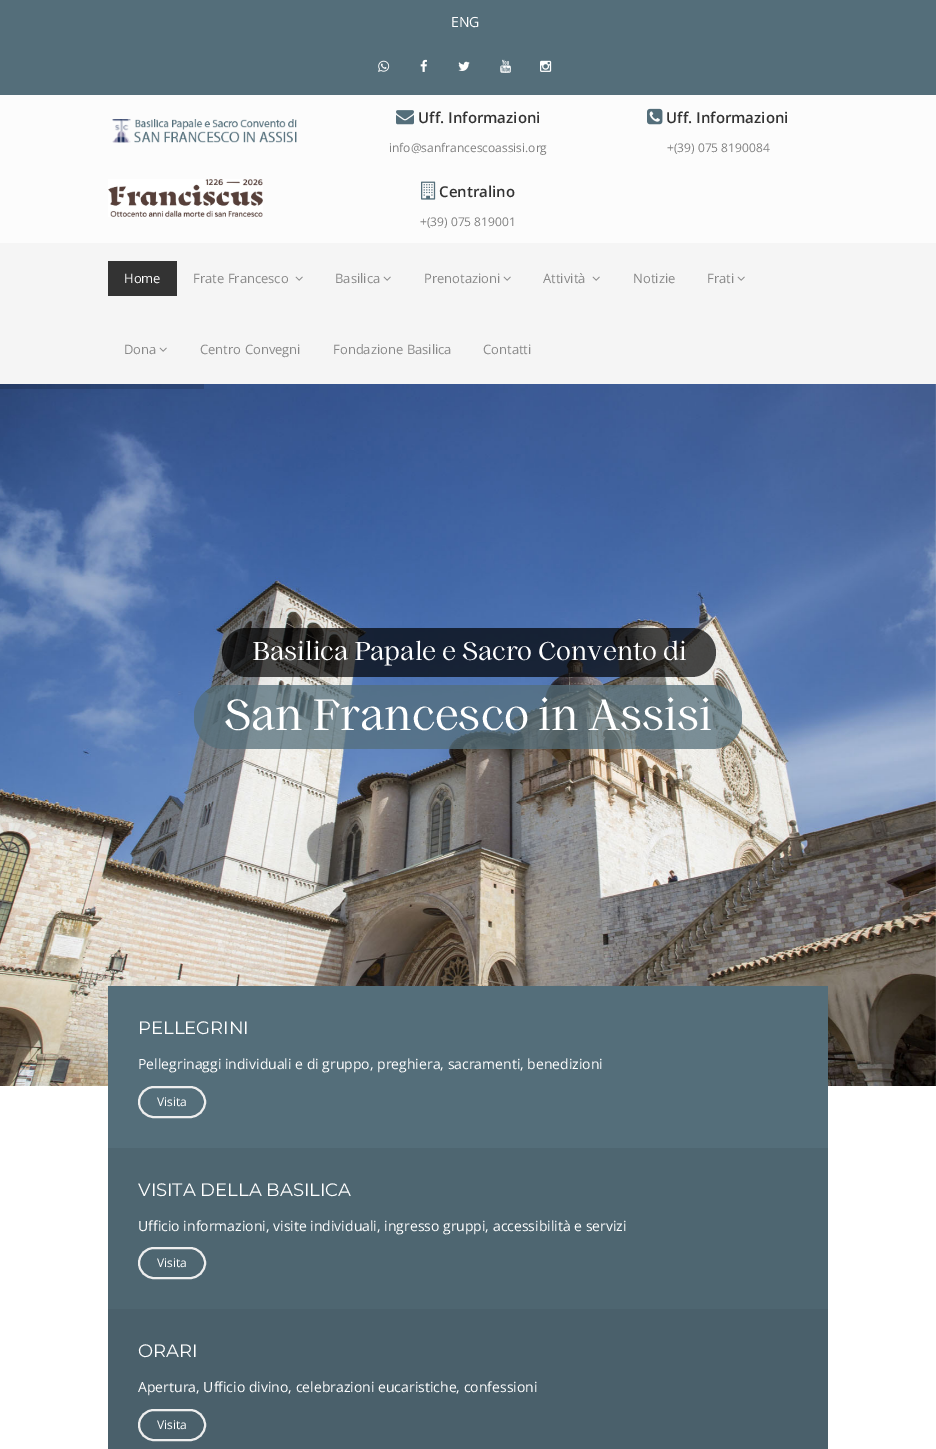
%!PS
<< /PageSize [936 1449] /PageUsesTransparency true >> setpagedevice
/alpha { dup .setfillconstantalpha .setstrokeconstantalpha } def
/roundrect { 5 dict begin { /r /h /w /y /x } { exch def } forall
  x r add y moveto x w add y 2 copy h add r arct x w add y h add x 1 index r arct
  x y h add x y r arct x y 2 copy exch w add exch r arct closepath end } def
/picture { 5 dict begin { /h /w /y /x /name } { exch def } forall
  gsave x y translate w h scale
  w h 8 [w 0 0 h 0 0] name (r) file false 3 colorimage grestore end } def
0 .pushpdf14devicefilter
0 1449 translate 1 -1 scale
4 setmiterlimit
1 setgray
0 0 936 1449 rectfill
0.329 0.431 0.478 setrgbcolor
0 0 936 95 rectfill
/OpenSans-Regular [14 0 0 -14 0 0] selectfont
1 setgray
451 27 moveto (ENG) show
(img1.rgb) 378 60 12 12 picture
(img2.rgb) 420 59 7 13 picture
(img3.rgb) 458 61 12 10 picture
(img4.rgb) 500 59 11 14 picture
(img5.rgb) 540 60 12 12 picture
0.988 setgray
0 95 936 148 rectfill
(img6.rgb) 112 119 185 24 picture
(img7.rgb) 108 179 155 38 picture
(img8.rgb) 396 110 18 15 picture
/OpenSans-SemiBold [15 0 0 -15 0 0] selectfont
0.2 setgray
418 123 moveto (Uff. Informazioni) show
/OpenSans-Regular [12 0 0 -12 0 0] selectfont
0.502 setgray
389 152 moveto (info@sanfrancescoassisi.org) show
(img9.rgb) 647 108 16 17 picture
/OpenSans-SemiBold [15 0 0 -15 0 0] selectfont
0.2 setgray
666 123 moveto (Uff. Informazioni) show
/OpenSans-Regular [12 0 0 -12 0 0] selectfont
0.502 setgray
667 152 moveto (+\(39\) 075 8190084) show
(img10.rgb) 421 181 15 19 picture
/OpenSans-SemiBold [15 0 0 -15 0 0] selectfont
0.2 setgray
439 197 moveto (Centralino) show
/OpenSans-Regular [12 0 0 -12 0 0] selectfont
0.502 setgray
420 226 moveto (+\(39\) 075 819001) show
0.961 setgray
0 243 936 141 rectfill
0.2 setgray
108 261 69 35 rectfill
/OpenSans-Regular [13 0 0 -13 0 0] selectfont
1 setgray
124 283 moveto (Home) show
0.533 setgray
193 283 moveto (Frate Francesco) show
(img11.rgb) 295 276 8 5 picture
335 283 moveto (Basilica) show
(img11.rgb) 383 276 8 5 picture
424 283 moveto (Prenotazioni) show
(img11.rgb) 503 276 8 5 picture
543 283 moveto (Attività) show
(img11.rgb) 592 276 8 5 picture
633 283 moveto (Notizie) show
707 283 moveto (Frati) show
(img11.rgb) 737 276 8 5 picture
124 354 moveto (Dona) show
(img11.rgb) 159 347 8 5 picture
200 354 moveto (Centro Convegni) show
333 354 moveto (Fondazione Basilica) show
483 354 moveto (Contatti) show
(img12.rgb) 0 384 936 702 picture
0.15 alpha
0 setgray
0 384 204 5 rectfill
0.7 alpha
222 628 494 49 24.5 roundrect fill
/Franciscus-Regular [26 0 0 -26 0 0] selectfont
1 alpha
1 setgray
252 660 moveto (Basilica Papale e Sacro Convento di) show
0.75 alpha
0.329 0.431 0.478 setrgbcolor
194 685 548 64 30 roundrect fill
/Franciscus-Regular [44 0 0 -44 0 0] selectfont
1 alpha
1 setgray
224 730 moveto (San Francesco in Assisi) show
0.329 0.431 0.478 setrgbcolor
108 986 720 162 rectfill
/Montserrat-Regular [18 0 0 -18 0 0] selectfont
1 setgray
138 1034 moveto (PELLEGRINI) show
/OpenSans-Regular [14 0 0 -14 0 0] selectfont
138 1069 moveto (Pellegrinaggi individuali e di gruppo, preghiera, sacramenti, benedizioni) show
0.933 setgray
2 setlinewidth
139 1087 66 30 15 roundrect stroke
/OpenSans-Regular [12 0 0 -12 0 0] selectfont
1 setgray
157 1106 moveto (Visita) show
0.306 0.4 0.443 setrgbcolor
108 1148 720 161 rectfill
/Montserrat-Regular [18 0 0 -18 0 0] selectfont
1 setgray
138 1196 moveto (VISITA DELLA BASILICA) show
/OpenSans-Regular [14 0 0 -14 0 0] selectfont
138 1231 moveto (Ufficio informazioni, visite individuali, ingresso gruppi, accessibilità e servizi) show
0.933 setgray
139 1248 66 30 15 roundrect stroke
/OpenSans-Regular [12 0 0 -12 0 0] selectfont
1 setgray
157 1267 moveto (Visita) show
0.29 0.376 0.42 setrgbcolor
108 1309 720 140 rectfill
/Montserrat-Regular [18 0 0 -18 0 0] selectfont
1 setgray
138 1357 moveto (ORARI) show
/OpenSans-Regular [14 0 0 -14 0 0] selectfont
138 1392 moveto (Apertura, Ufficio divino, celebrazioni eucaristiche, confessioni) show
0.933 setgray
139 1410 66 30 15 roundrect stroke
/OpenSans-Regular [12 0 0 -12 0 0] selectfont
1 setgray
157 1429 moveto (Visita) show
.poppdf14devicefilter showpage
